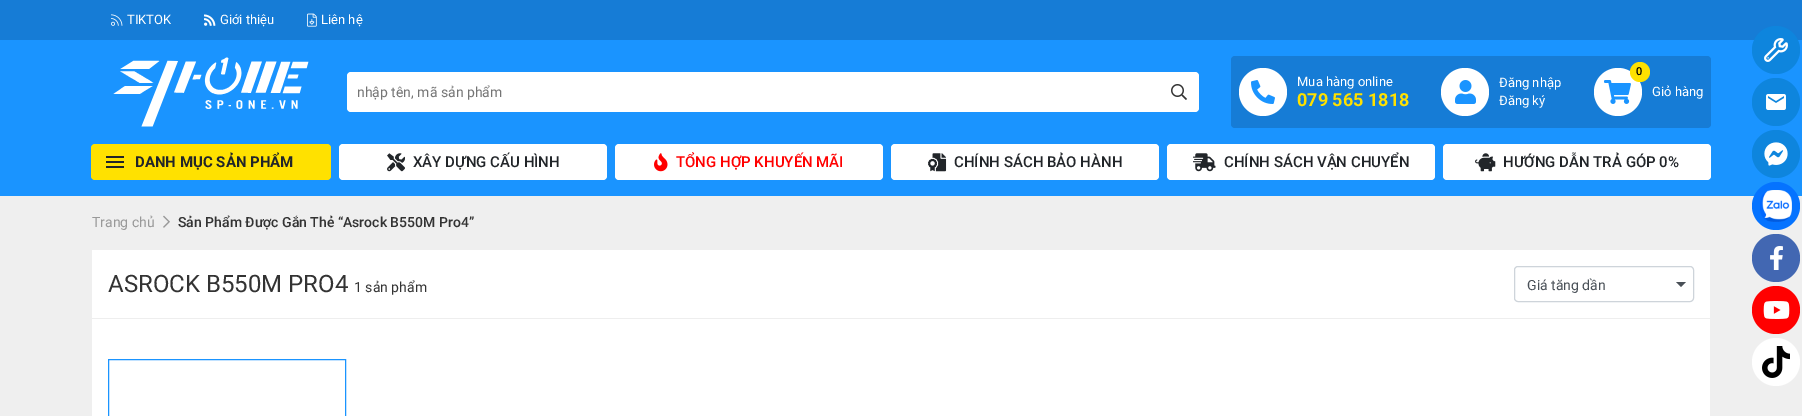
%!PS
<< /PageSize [1802 416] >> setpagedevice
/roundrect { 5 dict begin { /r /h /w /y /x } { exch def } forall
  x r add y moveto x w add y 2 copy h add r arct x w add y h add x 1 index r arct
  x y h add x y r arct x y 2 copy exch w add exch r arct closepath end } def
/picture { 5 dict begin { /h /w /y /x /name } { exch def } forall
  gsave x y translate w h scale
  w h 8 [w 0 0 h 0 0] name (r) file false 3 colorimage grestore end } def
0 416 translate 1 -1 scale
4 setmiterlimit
0.937 setgray
0 0 1802 416 rectfill
0.102 0.58 1 setrgbcolor
0 40 1802 156 rectfill
0.086 0.486 0.839 setrgbcolor
0 0 1802 40 rectfill
(img1.rgb) 111 14 12 12 picture
/Roboto-Regular [13 0 0 -13 0 0] selectfont
1 setgray
127 24 moveto (TIKTOK) show
(img2.rgb) 204 14 12 12 picture
220 24 moveto (Giới thiệu) show
(img3.rgb) 307 13 10 14 picture
321 24 moveto (Liên hệ) show
(img4.rgb) 113 57 196 70 picture
347 72 852 40 4 roundrect fill
/Roboto-Regular [14 0 0 -14 0 0] selectfont
0.459 setgray
357 97 moveto (nhập tên, mã sản phẩm) show
(img5.rgb) 1171 84 16 16 picture
0.086 0.486 0.839 setrgbcolor
1231 56 480 72 4 roundrect fill
1 setgray
newpath 1263 92 24 0 360 arc closepath fill
(img6.rgb) 1251 80 24 24 picture
/Roboto-Regular [13 0 0 -13 0 0] selectfont
1297 86 moveto (Mua hàng online) show
/Roboto-Bold [18 0 0 -18 0 0] selectfont
1 0.882 0 setrgbcolor
1297 106 moveto (079 565 1818) show
1 setgray
newpath 1465 92 24 0 360 arc closepath fill
(img7.rgb) 1455 80 21 24 picture
/Roboto-Regular [13 0 0 -13 0 0] selectfont
1499 87 moveto (Đăng nhập) show
1499 105 moveto (Đăng ký) show
newpath 1618 92 24 0 360 arc closepath fill
(img8.rgb) 1604 80 27 24 picture
1 0.882 0 setrgbcolor
newpath 1640 72 10 0 360 arc closepath fill
/Roboto-Medium [11 0 0 -11 0 0] selectfont
0 setgray
1636 75 moveto (0) show
/Roboto-Regular [13 0 0 -13 0 0] selectfont
1 setgray
1652 96 moveto (Giỏ hàng) show
1 0.882 0 setrgbcolor
91 144 240 36 4 roundrect fill
(img9.rgb) 106 156 18 12 picture
/Roboto-Bold [15 0 0 -15 0 0] selectfont
0.129 0.145 0.161 setrgbcolor
135 167 moveto (DANH MỤC SẢN PHẨM) show
1 setgray
339 144 268 36 4 roundrect fill
(img10.rgb) 387 153 18 19 picture
/Roboto-Medium [15 0 0 -15 0 0] selectfont
0.129 0.145 0.161 setrgbcolor
413 167 moveto (XÂY DỰNG CẤU HÌNH) show
1 setgray
615 144 268 36 4 roundrect fill
(img11.rgb) 654 153 14 19 picture
1 0 0 setrgbcolor
676 167 moveto (TỔNG HỢP KHUYẾN MÃI) show
1 setgray
891 144 268 36 4 roundrect fill
(img12.rgb) 928 153 19 19 picture
0.129 0.145 0.161 setrgbcolor
954 167 moveto (CHÍNH SÁCH BẢO HÀNH) show
1 setgray
1167 144 268 36 4 roundrect fill
(img13.rgb) 1193 153 23 19 picture
0.129 0.145 0.161 setrgbcolor
1224 167 moveto (CHÍNH SÁCH VẬN CHUYỂN) show
1 setgray
1443 144 268 36 4 roundrect fill
(img14.rgb) 1475 153 21 19 picture
0.129 0.145 0.161 setrgbcolor
1503 167 moveto (HƯỚNG DẪN TRẢ GÓP 0%) show
0.055 0.522 0.867 setrgbcolor
newpath 1776 50 24 0 360 arc closepath fill
(img15.rgb) 1764 38 24 24 picture
newpath 1776 102 24 0 360 arc closepath fill
(img16.rgb) 1766 94 20 16 picture
newpath 1776 154 24 0 360 arc closepath fill
(img17.rgb) 1764 142 24 24 picture
0.02 0.451 1 setrgbcolor
newpath 1776 206 24 0 360 arc closepath fill
(img18.rgb) 1760 190 32 32 picture
0.259 0.404 0.698 setrgbcolor
newpath 1776 258 24 0 360 arc closepath fill
(img19.rgb) 1770 246 13 24 picture
1 0 0 setrgbcolor
newpath 1776 310 24 0 360 arc closepath fill
(img20.rgb) 1763 301 27 18 picture
1 setgray
newpath 1776 362 24 0 360 arc closepath fill
(img21.rgb) 1762 346 28 32 picture
/Roboto-Regular [14 0 0 -14 0 0] selectfont
0.6 setgray
92 227 moveto (Trang chủ) show
(img22.rgb) 163 215 7 13 picture
/Roboto-Medium [14 0 0 -14 0 0] selectfont
0.2 setgray
178 227 moveto (Sản Phẩm Được Gắn Thẻ “Asrock B550M Pro4”) show
1 setgray
92 250 1618 166 rectfill
/Roboto-Regular [24 0 0 -24 0 0] selectfont
0.2 setgray
108 292 moveto (ASROCK B550M PRO4) show
/Roboto-Regular [14 0 0 -14 0 0] selectfont
354 292 moveto (1 sản phẩm) show
0.286 0.314 0.341 setrgbcolor
newpath 1676 282 moveto 1681 287 lineto 1686 282 lineto closepath fill
0.808 0.831 0.855 setrgbcolor
1514.5 266.5 179 35 3.5 roundrect stroke
0.286 0.314 0.341 setrgbcolor
1527 290 moveto (Giá tăng dần) show
0.933 setgray
92 318 1618 1 rectfill
0.102 0.58 1 setrgbcolor
108.5 359.5 237 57 rectstroke
showpage
